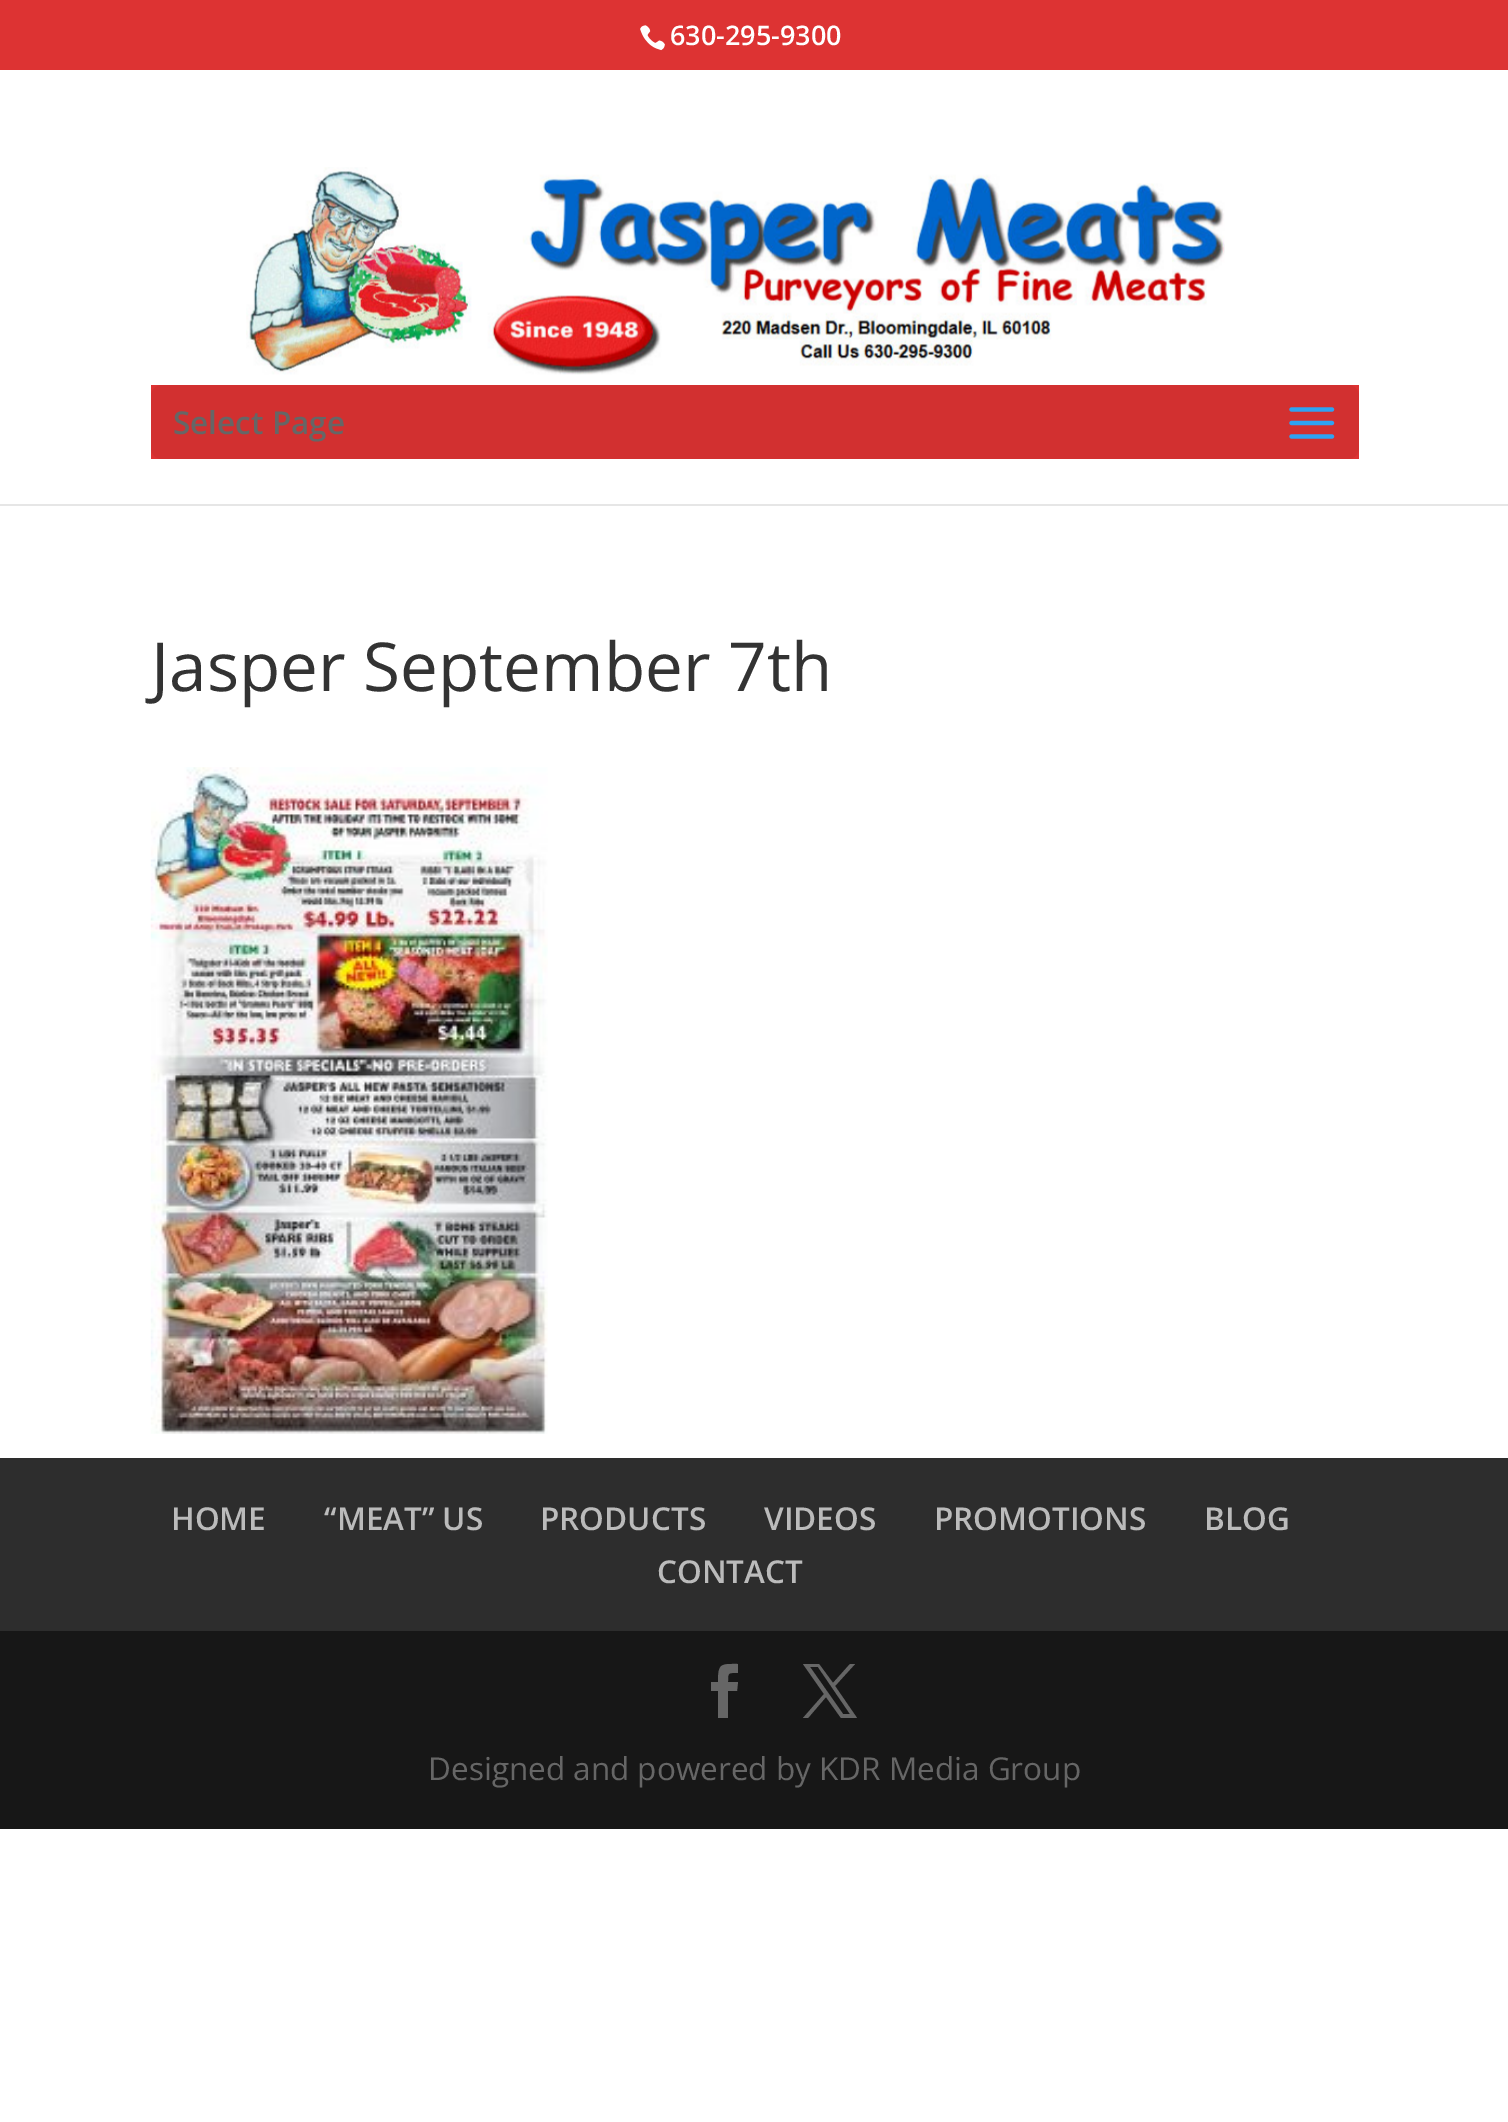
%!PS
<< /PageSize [1508 2122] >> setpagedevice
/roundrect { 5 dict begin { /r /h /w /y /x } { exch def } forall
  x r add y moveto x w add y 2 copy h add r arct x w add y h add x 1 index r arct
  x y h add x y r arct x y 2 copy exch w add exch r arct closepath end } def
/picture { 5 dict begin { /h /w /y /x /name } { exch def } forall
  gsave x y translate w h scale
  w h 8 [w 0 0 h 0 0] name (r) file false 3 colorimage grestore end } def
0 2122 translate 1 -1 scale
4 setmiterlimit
1 setgray
0 0 1508 2122 rectfill
0.867 0.2 0.2 setrgbcolor
0 0 1508 70 rectfill
(img1.rgb) 640 25 25 26 picture
/OpenSans-SemiBold [27 0 0 -27 0 0] selectfont
1 setgray
670 45 moveto (630-295-9300) show
0.902 setgray
newpath 0 504 moveto 0 506 lineto 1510 506 lineto 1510 72 lineto 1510 504 lineto closepath fill
(img2.rgb) 246 167 979 208 picture
0.867 0.2 0.2 setrgbcolor
151 385 1208 74 rectfill
0.824 0.188 0.188 setrgbcolor
151 385 1208 74 11 roundrect fill
/OpenSans-SemiBold [31.5 0 0 -31.5 0 0] selectfont
0.4 setgray
173 434 moveto (Select Page) show
(img3.rgb) 1289 407 46 32 picture
/OpenSans-Regular [67.5 0 0 -67.5 0 0] selectfont
0.2 setgray
151 691 moveto (Jasper September 7th) show
(img4.rgb) 150 767 398 667 picture
0.176 setgray
0 1458 1508 173 rectfill
/OpenSans-SemiBold [31.5 0 0 -31.5 0 0] selectfont
0.733 setgray
171 1530 moveto (HOME) show
324 1530 moveto (“MEAT” US) show
540 1530 moveto (PRODUCTS) show
764 1530 moveto (VIDEOS) show
934 1530 moveto (PROMOTIONS) show
1204 1530 moveto (BLOG) show
657 1583 moveto (CONTACT) show
0.09 setgray
0 1631 1508 198 rectfill
0.4 setgray
newpath 718 1718 moveto 728 1718 lineto 728 1691 lineto 737 1691 lineto 738 1682 lineto 728 1682 lineto 728 1672 728 1673 738 1673 curveto 738 1664 lineto 721 1664 718 1663 718 1682 curveto 711 1682 lineto 711 1691 lineto 718 1691 lineto closepath fill
newpath 803 1664 moveto 824 1694 lineto 803 1718 lineto 808 1718 lineto 826 1697 lineto 841 1718 lineto 857 1718 lineto 835 1686 lineto 855 1664 lineto 850 1664 lineto 833 1683 lineto 819 1664 lineto closepath 810 1667 moveto 818 1667 lineto 850 1714 lineto 843 1714 lineto closepath fill
/OpenSans-Regular [31.5 0 0 -31.5 0 0] selectfont
428 1780 moveto (Designed and powered by KDR Media Group) show
showpage
